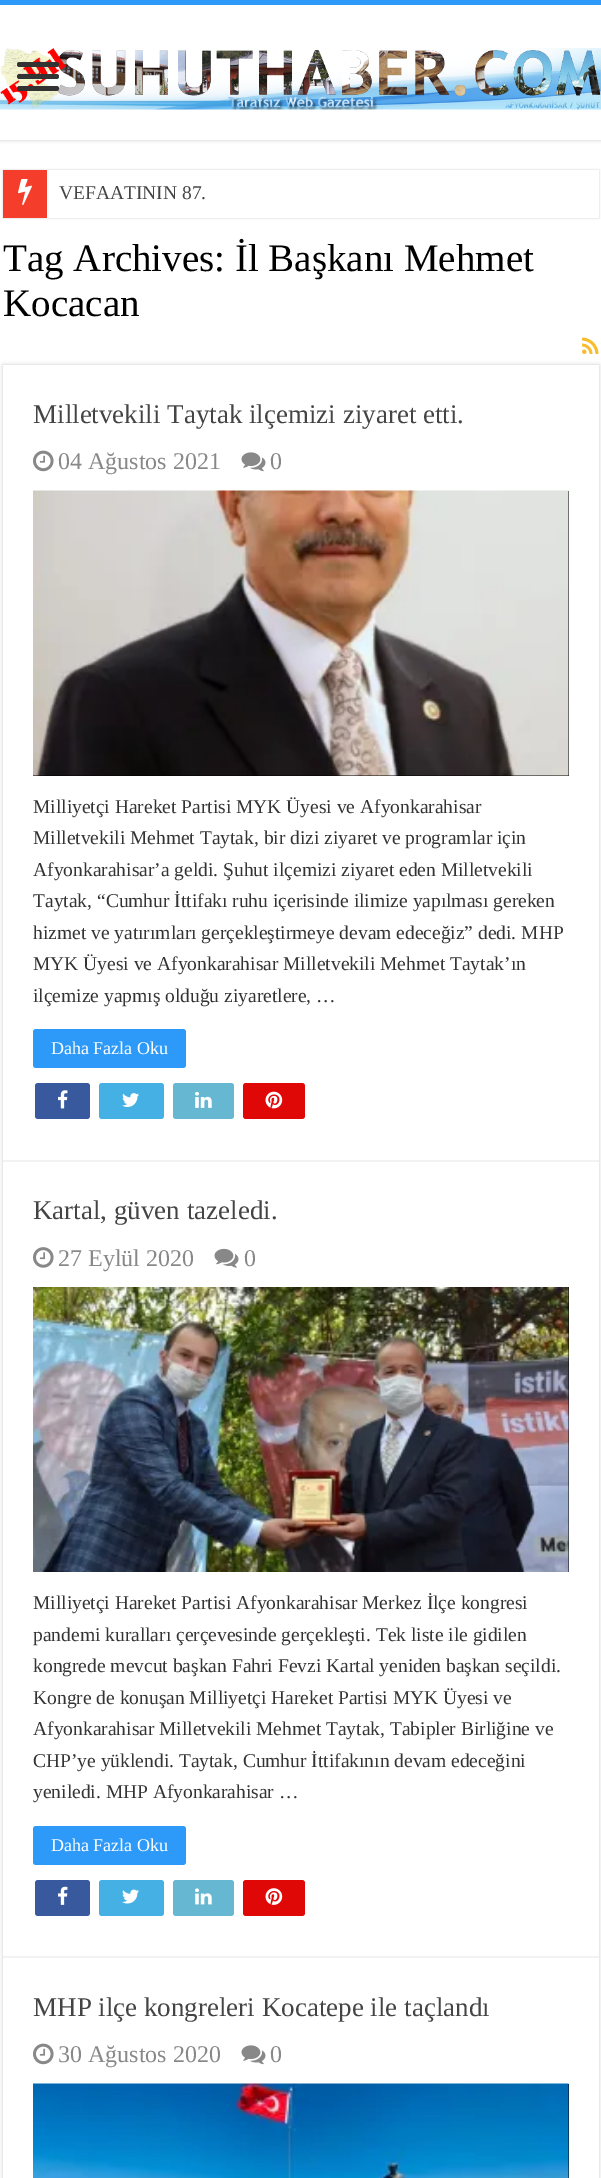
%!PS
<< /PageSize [601 2178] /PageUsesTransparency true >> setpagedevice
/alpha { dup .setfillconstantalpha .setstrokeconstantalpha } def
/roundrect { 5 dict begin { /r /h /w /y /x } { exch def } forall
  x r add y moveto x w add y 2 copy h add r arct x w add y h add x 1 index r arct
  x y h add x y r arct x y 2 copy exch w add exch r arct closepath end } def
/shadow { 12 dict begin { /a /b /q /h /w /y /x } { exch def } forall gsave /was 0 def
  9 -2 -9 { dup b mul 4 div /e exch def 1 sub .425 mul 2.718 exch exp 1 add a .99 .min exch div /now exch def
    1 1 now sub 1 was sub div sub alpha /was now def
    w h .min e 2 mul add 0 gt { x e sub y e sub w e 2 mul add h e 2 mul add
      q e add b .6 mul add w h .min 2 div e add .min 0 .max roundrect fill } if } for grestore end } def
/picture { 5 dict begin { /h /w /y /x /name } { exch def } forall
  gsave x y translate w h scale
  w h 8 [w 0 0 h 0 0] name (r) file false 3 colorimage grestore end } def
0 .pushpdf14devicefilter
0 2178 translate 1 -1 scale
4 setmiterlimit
1 setgray
0 0 601 2178 rectfill
0.792 setgray
0 0 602 140 0 2 1 shadow
1 setgray
0 5 601 135 rectfill
0.176 0.604 0.98 setrgbcolor
0 0 601 5 rectfill
(img1.rgb) 0 48 601 62 picture
0.2 setgray
17 62 42 5 2.5 roundrect fill
17 74 42 5 2.5 roundrect fill
17 86 42 5 2.5 roundrect fill
0.792 setgray
3 170 596 48 0 1 1 shadow
1 setgray
47 170 552 48 rectfill
0.957 0.239 0.165 setrgbcolor
3 170 44 48 rectfill
(img2.rgb) 18 179 14 26 picture
/LiberationSerif-Regular [19.5 0 0 -19.5 0 0] selectfont
0.267 setgray
59 199 moveto (VEFAATININ 87.) show
/LiberationSerif-Regular [39 0 0 -39 0 0] selectfont
0 setgray
3 271 moveto (Tag Archives: İl Başkanı Mehmet) show
3 316 moveto (Kocacan) show
(img3.rgb) 582 337 17 17 picture
0.792 setgray
3 365 596 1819 0 2 1 shadow
1 setgray
3 365 596 1813 rectfill
0.949 setgray
3 1160 596 2 rectfill
/LiberationSerif-Regular [27 0 0 -27 0 0] selectfont
0.267 setgray
33 423 moveto (Milletvekili Taytak ilçemizi ziyaret etti.) show
(img4.rgb) 33 450 21 22 picture
/LiberationSerif-Regular [24 0 0 -24 0 0] selectfont
0.533 setgray
58 469 moveto (04 Ağustos 2021) show
(img5.rgb) 241 452 25 20 picture
270 469 moveto (0) show
0 setgray
33 491 536 285 rectfill
(img6.rgb) 33 490 536 286 picture
/LiberationSerif-Regular [19.5 0 0 -19.5 0 0] selectfont
0.2 setgray
33 813 moveto (Milliyetçi Hareket Partisi MYK Üyesi ve Afyonkarahisar) show
33 844 moveto (Milletvekili Mehmet Taytak, bir dizi ziyaret ve programlar için) show
33 876 moveto (Afyonkarahisar’a geldi. Şuhut ilçemizi ziyaret eden Milletvekili) show
33 907 moveto (Taytak, “Cumhur İttifakı ruhu içerisinde ilimize yapılması gereken) show
33 939 moveto (hizmet ve yatırımları gerçekleştirmeye devam edeceğiz” dedi. MHP) show
33 970 moveto (MYK Üyesi ve Afyonkarahisar Milletvekili Mehmet Taytak’ın) show
33 1002 moveto (ilçemize yapmış olduğu ziyaretlere, …) show
0.176 0.604 0.98 setrgbcolor
33 1029 153 39 3 roundrect fill
/LiberationSerif-Regular [18 0 0 -18 0 0] selectfont
1 setgray
51 1054 moveto (Daha Fazla Oku) show
0.224 0.349 0.624 setrgbcolor
35 1083 55 36 3 roundrect fill
(img7.rgb) 58 1090 10 19 picture
0.271 0.69 0.89 setrgbcolor
99 1083 65 36 3 roundrect fill
(img8.rgb) 122 1093 17 14 picture
0.396 0.718 0.824 setrgbcolor
173 1083 61 36 3 roundrect fill
(img9.rgb) 195 1091 17 17 picture
0.878 0.027 0.027 setrgbcolor
243 1083 62 36 3 roundrect fill
(img10.rgb) 265 1091 18 18 picture
0.949 setgray
3 1956 596 2 rectfill
/LiberationSerif-Regular [27 0 0 -27 0 0] selectfont
0.267 setgray
33 1219 moveto (Kartal, güven tazeledi.) show
(img11.rgb) 33 1247 21 21 picture
/LiberationSerif-Regular [24 0 0 -24 0 0] selectfont
0.533 setgray
58 1266 moveto (27 Eylül 2020) show
(img12.rgb) 214 1248 25 20 picture
244 1266 moveto (0) show
0 setgray
568 1287 1 285 rectfill
(img13.rgb) 33 1287 536 285 picture
/LiberationSerif-Regular [19.5 0 0 -19.5 0 0] selectfont
0.2 setgray
33 1609 moveto (Milliyetçi Hareket Partisi Afyonkarahisar Merkez İlçe kongresi) show
33 1641 moveto (pandemi kuralları çerçevesinde gerçekleşti. Tek liste ile gidilen) show
33 1672 moveto (kongrede mevcut başkan Fahri Fevzi Kartal yeniden başkan seçildi.) show
33 1704 moveto (Kongre de konuşan Milliyetçi Hareket Partisi MYK Üyesi ve) show
33 1735 moveto (Afyonkarahisar Milletvekili Mehmet Taytak, Tabipler Birliğine ve) show
33 1767 moveto (CHP’ye yüklendi. Taytak, Cumhur İttifakının devam edeceğini) show
33 1798 moveto (yeniledi. MHP Afyonkarahisar …) show
0.176 0.604 0.98 setrgbcolor
33 1826 153 39 3 roundrect fill
/LiberationSerif-Regular [18 0 0 -18 0 0] selectfont
1 setgray
51 1851 moveto (Daha Fazla Oku) show
0.224 0.349 0.624 setrgbcolor
35 1880 55 36 3 roundrect fill
(img14.rgb) 58 1886 10 19 picture
0.271 0.69 0.89 setrgbcolor
99 1880 65 36 3 roundrect fill
(img15.rgb) 122 1889 17 15 picture
0.396 0.718 0.824 setrgbcolor
173 1880 61 36 3 roundrect fill
(img16.rgb) 195 1888 17 17 picture
0.878 0.027 0.027 setrgbcolor
243 1880 62 36 3 roundrect fill
(img17.rgb) 265 1888 18 17 picture
/LiberationSerif-Regular [27 0 0 -27 0 0] selectfont
0.267 setgray
33 2016 moveto (MHP ilçe kongreleri Kocatepe ile taçlandı) show
(img4.rgb) 33 2043 21 22 picture
/LiberationSerif-Regular [24 0 0 -24 0 0] selectfont
0.533 setgray
58 2062 moveto (30 Ağustos 2020) show
(img5.rgb) 241 2045 25 20 picture
270 2062 moveto (0) show
0 setgray
568 2084 1 94 rectfill
(img18.rgb) 33 2083 536 95 picture
.poppdf14devicefilter showpage
